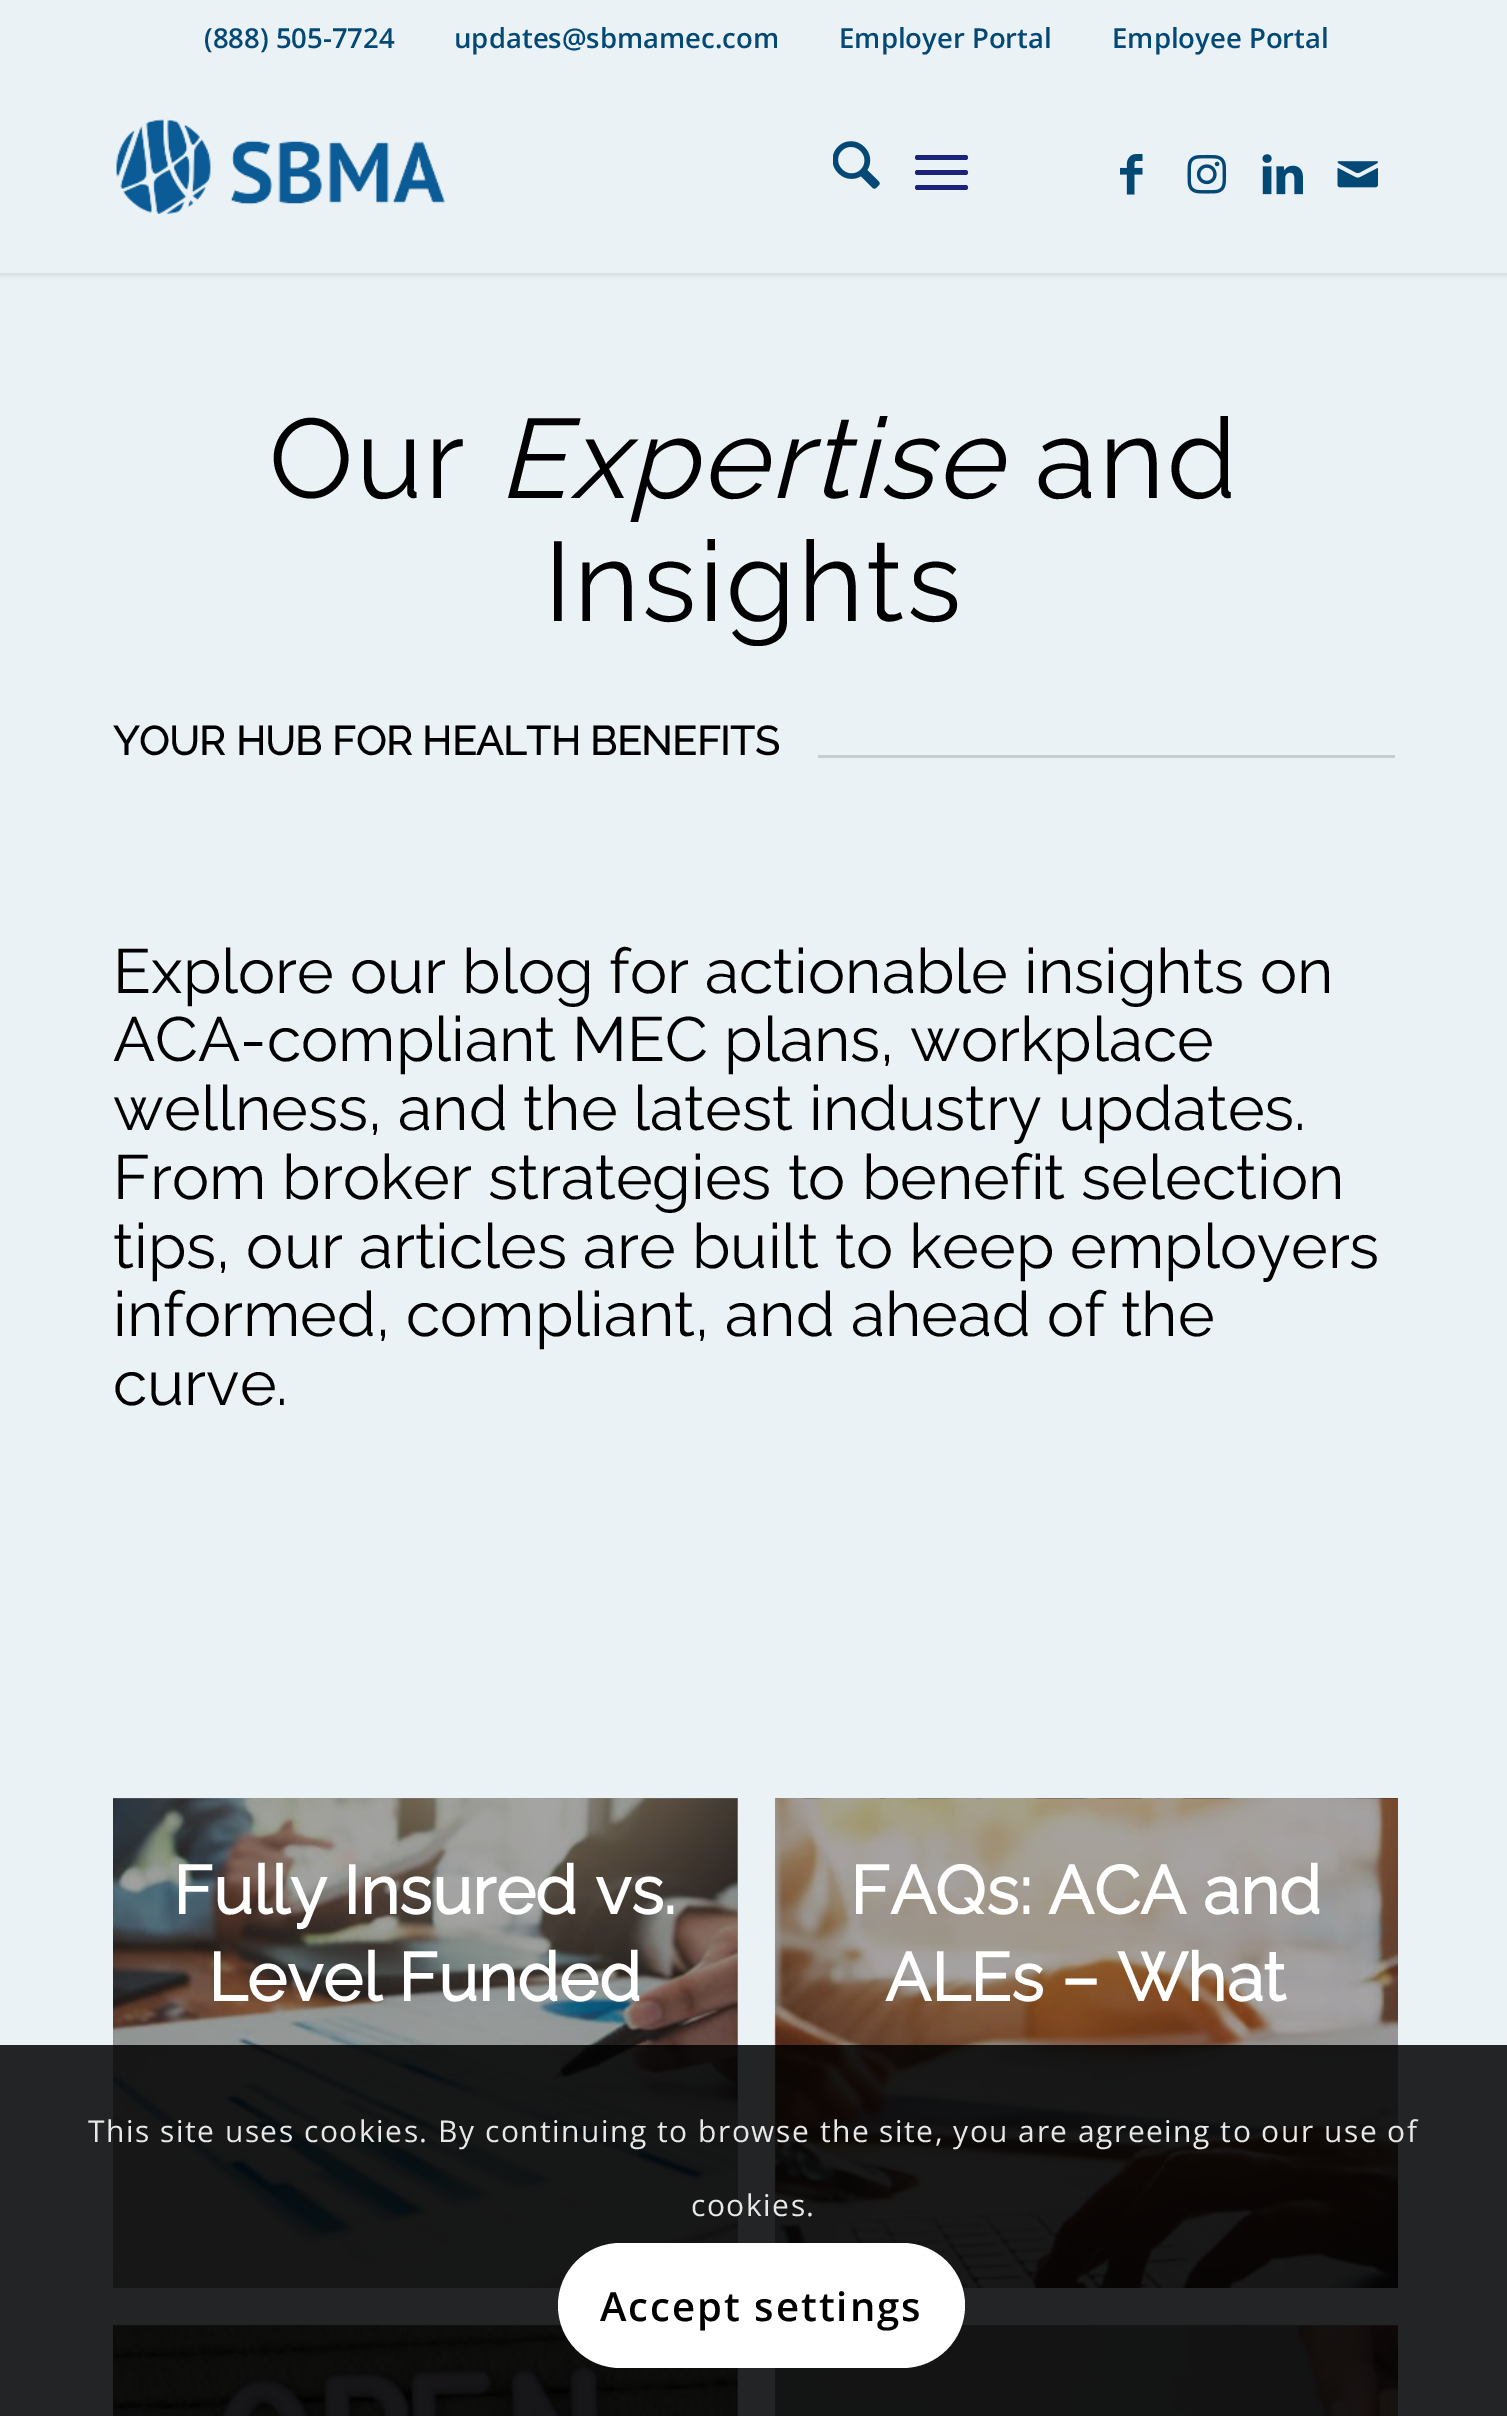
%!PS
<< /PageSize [1507 2416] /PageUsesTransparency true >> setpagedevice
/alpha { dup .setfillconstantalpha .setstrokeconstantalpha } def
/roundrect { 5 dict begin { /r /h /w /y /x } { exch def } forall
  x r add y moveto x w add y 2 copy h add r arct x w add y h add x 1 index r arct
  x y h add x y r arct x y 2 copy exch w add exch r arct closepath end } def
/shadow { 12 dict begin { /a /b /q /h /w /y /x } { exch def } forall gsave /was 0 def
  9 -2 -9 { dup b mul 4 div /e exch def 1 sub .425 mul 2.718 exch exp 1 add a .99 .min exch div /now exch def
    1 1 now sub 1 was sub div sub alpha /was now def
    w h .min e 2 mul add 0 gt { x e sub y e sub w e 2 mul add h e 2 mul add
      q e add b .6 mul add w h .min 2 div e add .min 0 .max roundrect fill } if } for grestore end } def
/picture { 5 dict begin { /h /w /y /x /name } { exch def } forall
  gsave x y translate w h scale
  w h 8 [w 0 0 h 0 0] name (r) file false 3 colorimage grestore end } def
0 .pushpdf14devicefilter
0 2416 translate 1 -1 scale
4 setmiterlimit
0.918 0.949 0.965 setrgbcolor
0 0 1507 2416 rectfill
0.596 0.616 0.627 setrgbcolor
775 2325 623 91 rectfill
113 2325 625 91 rectfill
775 1798 1 445 rectfill
737 1798 1 445 rectfill
0 setgray
-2 -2 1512 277 0 2.5 0.1 shadow
0.918 0.949 0.965 setrgbcolor
0 0 1507 273 rectfill
/OpenSans-SemiBold [27.5 0 0 -27.5 0 0] selectfont
0.016 0.282 0.463 setrgbcolor
204 48 moveto (\(888\) 505-7724) show
454 48 moveto (updates@sbmamec.com) show
839 48 moveto (Employer Portal) show
1112 48 moveto (Employee Portal) show
(img1.rgb) 116 119 329 95 picture
(img2.rgb) 833 141 47 48 picture
0.114 0.137 0.471 setrgbcolor
915 170 53 5 2.5 roundrect fill
915 155 53 5 2.5 roundrect fill
915 185 53 5 2.5 roundrect fill
(img3.rgb) 1120 154 23 41 picture
(img4.rgb) 1187 154 40 40 picture
(img5.rgb) 1262 154 41 41 picture
(img6.rgb) 1337 161 41 27 picture
/Raleway-Thin [112.5 0 0 -112.5 0 0] selectfont
0 setgray
269 498 moveto 2.5 0 (Our) ashow
/Raleway-ThinItalic [112.5 0 0 -112.5 0 0] selectfont
498 498 moveto 2.5 0 (Expertise) ashow
/Raleway-Thin [112.5 0 0 -112.5 0 0] selectfont
1035 498 moveto 2.5 0 (and) ashow
544 621 moveto 2.5 0 (Insights) ashow
/Raleway-Bold [40 0 0 -40 0 0] selectfont
113 755 moveto (YOUR HUB FOR HEALTH BENEFITS) show
0.78 0.808 0.82 setrgbcolor
818 755 577 3 rectfill
/Raleway-Thin [62.5 0 0 -62.5 0 0] selectfont
0 setgray
113 993 moveto (Explore our blog for actionable insights on) show
113 1061 moveto (ACA-compliant MEC plans, workplace) show
113 1130 moveto (wellness, and the latest industry updates.) show
113 1199 moveto (From broker strategies to benefit selection) show
113 1268 moveto (tips, our articles are built to keep employers) show
113 1336 moveto (informed, compliant, and ahead of the) show
113 1405 moveto (curve.) show
(img7.rgb) 113 1798 625 490 picture
/Raleway-Bold [67.5 0 0 -67.5 0 0] selectfont
1 setgray
173 1914 moveto (Fully Insured vs.) show
208 2001 moveto (Level Funded) show
(img8.rgb) 774 1798 624 490 picture
850 1914 moveto (FAQs: ACA and) show
885 2001 moveto (ALEs – What) show
(img9.rgb) 113 2324 625 92 picture
(img10.rgb) 774 2324 624 92 picture
0.85 alpha
0 setgray
0 2045 1507 371 rectfill
/OpenSans-Regular [30 0 0 -30 0 0] selectfont
1 alpha
0.91 setgray
88 2142 moveto 1.5 0 (This site uses cookies. By continuing to browse the site, you are agreeing to our use of) ashow
691 2216 moveto 1.5 0 (cookies.) ashow
1 setgray
558 2243 407 125 62.5 roundrect fill
/OpenSans-SemiBold [40 0 0 -40 0 0] selectfont
0 setgray
600 2321 moveto 2 0 (Accept settings) ashow
.poppdf14devicefilter showpage
